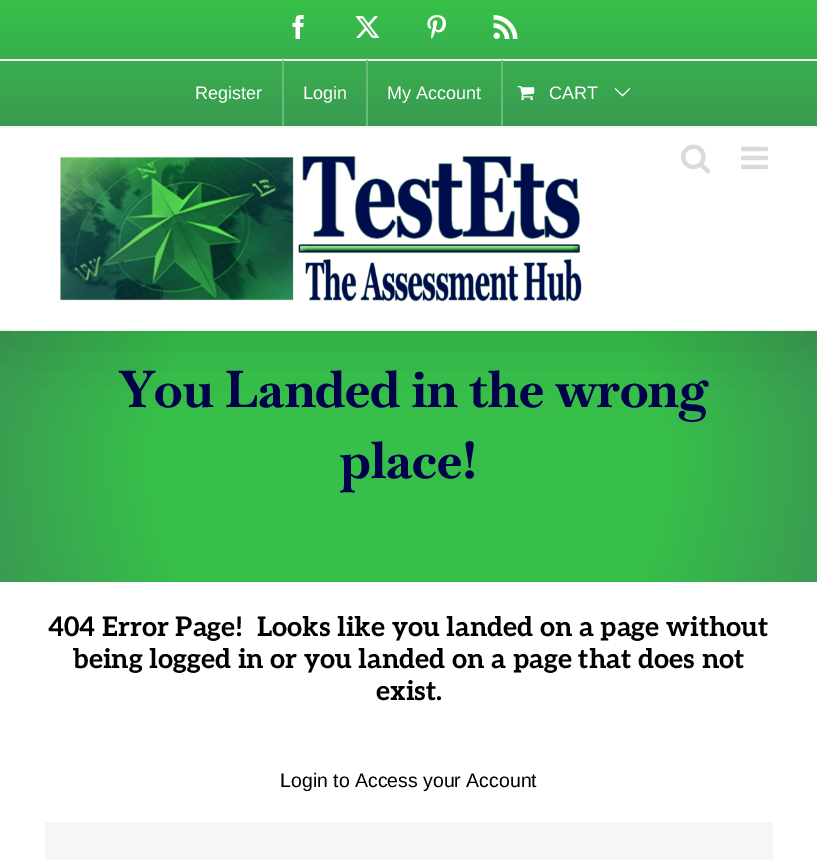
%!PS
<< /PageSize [817 860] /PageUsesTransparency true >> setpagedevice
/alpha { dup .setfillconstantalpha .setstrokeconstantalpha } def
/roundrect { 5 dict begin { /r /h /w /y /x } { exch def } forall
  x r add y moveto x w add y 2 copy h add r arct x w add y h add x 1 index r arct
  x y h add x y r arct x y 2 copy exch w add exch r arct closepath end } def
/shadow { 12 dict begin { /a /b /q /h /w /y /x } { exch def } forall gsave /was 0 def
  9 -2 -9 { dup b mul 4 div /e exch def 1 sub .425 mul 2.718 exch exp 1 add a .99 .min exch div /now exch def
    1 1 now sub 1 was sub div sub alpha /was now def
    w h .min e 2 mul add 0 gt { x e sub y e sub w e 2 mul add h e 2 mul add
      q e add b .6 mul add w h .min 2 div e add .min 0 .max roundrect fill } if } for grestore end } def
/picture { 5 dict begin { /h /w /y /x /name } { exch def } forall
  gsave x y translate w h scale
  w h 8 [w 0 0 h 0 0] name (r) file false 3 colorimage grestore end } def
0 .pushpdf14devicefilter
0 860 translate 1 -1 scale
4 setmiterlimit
1 setgray
0 0 817 860 rectfill
gsave newpath 0 331 moveto 817 331 lineto 817 582 lineto 0 582 lineto closepath clip newpath 409 456 translate 428 428 scale
<< /ShadingType 3 /ColorSpace /DeviceRGB /Coords [0 0 0 0 0 1] /Extend [true true] /Function << /FunctionType 3 /Domain [0 1] /Functions [<< /FunctionType 2 /Domain [0 1] /C0 [0.216 0.753 0.286] /C1 [0.216 0.753 0.286] /N 1 >> << /FunctionType 2 /Domain [0 1] /C0 [0.216 0.753 0.286] /C1 [0.227 0.608 0.322] /N 1 >>] /Bounds [0.59] /Encode [0 1 0 1] >> >> shfill grestore
0 setgray
3 18 812 324 0 37.5 0.14 shadow
gsave newpath 0 0 moveto 817 0 lineto 817 126 lineto 0 126 lineto closepath clip newpath
<< /ShadingType 2 /ColorSpace /DeviceRGB /Coords [409 0 409 126] /Extend [true true] /Function << /FunctionType 2 /Domain [0 1] /C0 [0.216 0.753 0.286] /C1 [0.227 0.608 0.322] /N 1 >> >> shfill grestore
0.957 setgray
0 126 817 2 rectfill
0 59 817 2 rectfill
(img1.rgb) 292 15 12 24 picture
(img2.rgb) 355 16 25 22 picture
(img3.rgb) 427 15 19 24 picture
(img4.rgb) 493 15 25 24 picture
/LiberationSans-Regular [18 0 0 -18 0 0] selectfont
1 setgray
195 99 moveto (Register) show
0.396 0.737 0.482 setrgbcolor
282 60 2 66 rectfill
1 setgray
303 99 moveto (Login) show
0.396 0.737 0.482 setrgbcolor
366 60 2 66 rectfill
1 setgray
387 99 moveto (My Account) show
0.396 0.737 0.482 setrgbcolor
501 60 2 66 rectfill
(img5.rgb) 517 86 18 15 picture
1 setgray
549 99 moveto (CART) show
(img6.rgb) 614 88 17 9 picture
0 128 817 201 rectfill
0.957 setgray
13 329 792 2 rectfill
(img7.rgb) 60 156 522 146 picture
(img8.rgb) 681 144 30 30 picture
(img9.rgb) 741 146 27 24 picture
/Baskervville-Bold [51 0 0 -51 0 0] selectfont
0 0.008 0.298 setrgbcolor
120 407 moveto (You Landed in the wrong) show
340 478 moveto (place!) show
/Aleo-Bold [27 0 0 -27 0 0] selectfont
0 setgray
48 636 moveto (404 Error Page!  Looks like you landed on a page without) show
73 668 moveto (being logged in or you landed on a page that does not) show
376 700 moveto (exist.) show
/LiberationSans-Regular [19.5 0 0 -19.5 0 0] selectfont
280 787 moveto (Login to Access your Account) show
0.965 setgray
45 822 728 38 rectfill
.poppdf14devicefilter showpage
